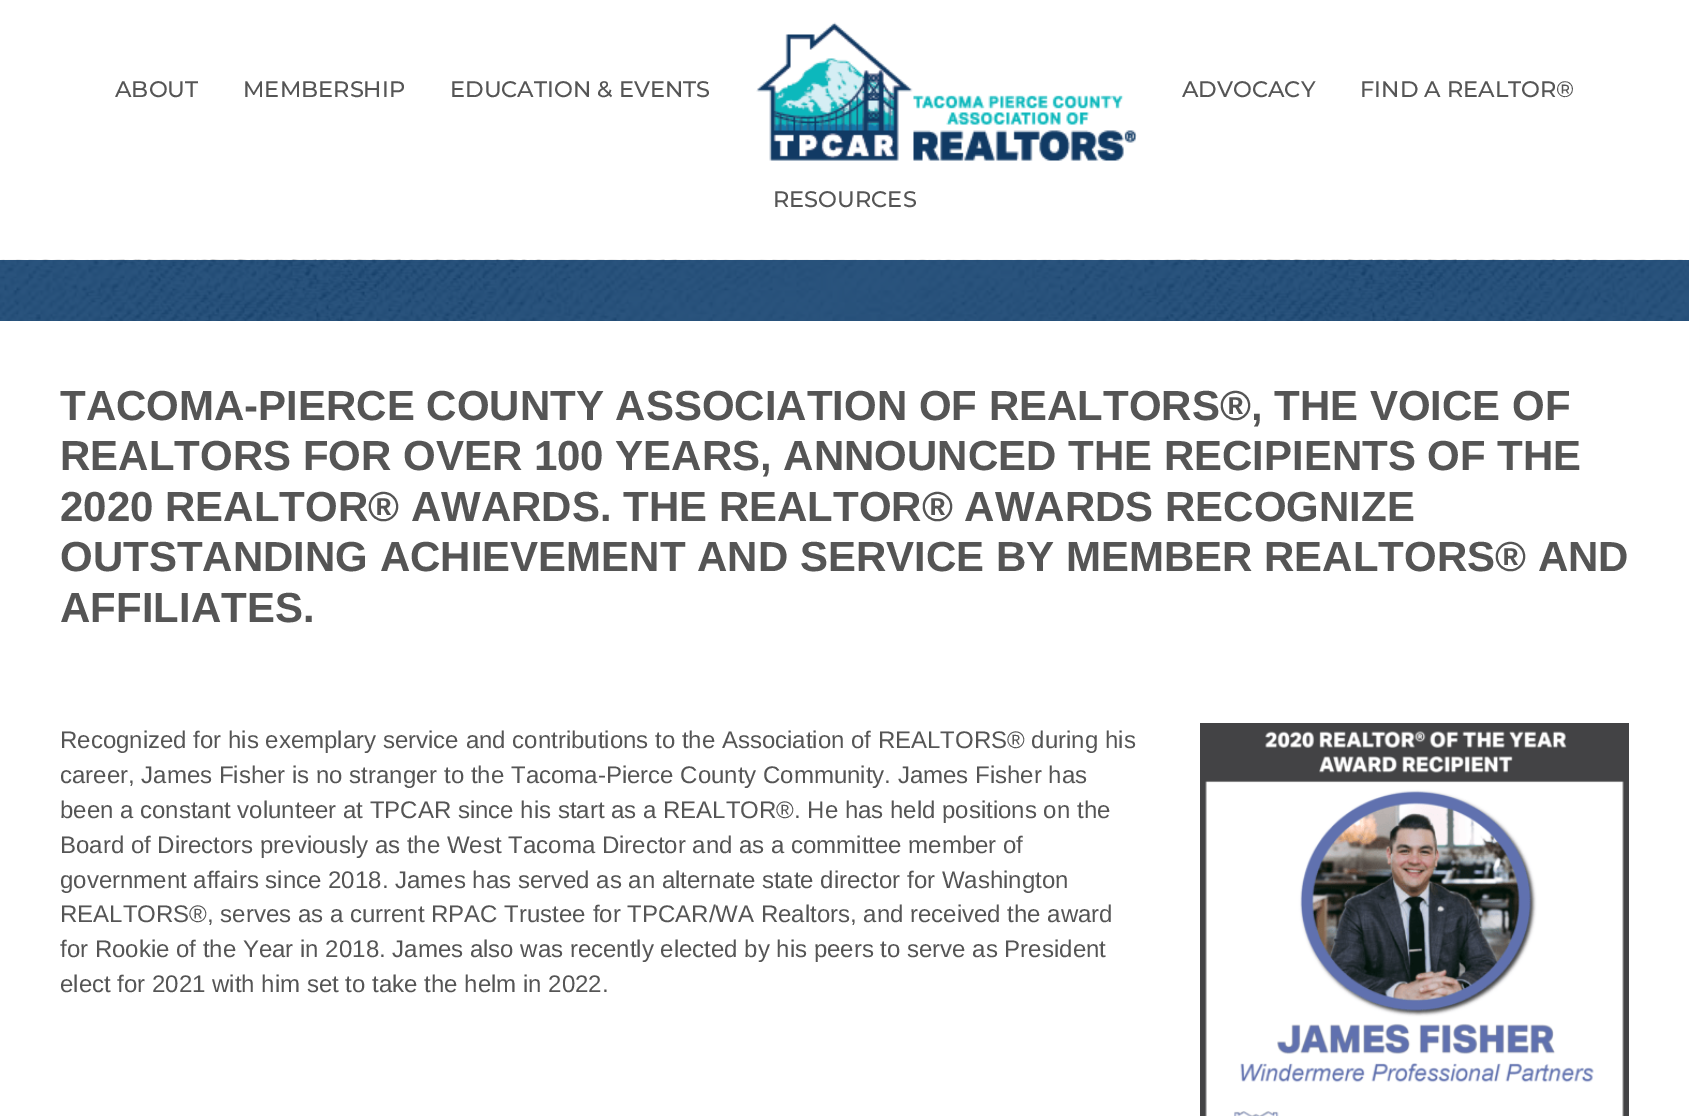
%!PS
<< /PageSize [1689 1116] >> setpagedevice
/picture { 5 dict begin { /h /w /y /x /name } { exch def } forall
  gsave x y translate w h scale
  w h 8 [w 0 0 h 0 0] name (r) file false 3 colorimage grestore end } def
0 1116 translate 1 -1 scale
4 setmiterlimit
1 setgray
0 0 1689 1116 rectfill
/Montserrat-Thin [22.5 0 0 -22.5 0 0] selectfont
0.333 setgray
115 97 moveto (ABOUT) show
243 97 moveto (MEMBERSHIP) show
450 97 moveto (EDUCATION & EVENTS) show
(img1.rgb) 756 22 381 139 picture
1182 97 moveto (ADVOCACY) show
1360 97 moveto (FIND A REALTOR®) show
773 207 moveto (RESOURCES) show
(img2.rgb) 0 259 1689 62 picture
/LiberationSans-Bold [42 0 0 -42 0 0] selectfont
60 420 moveto (TACOMA-PIERCE COUNTY ASSOCIATION OF REALTORS®, THE VOICE OF) show
60 470 moveto (REALTORS FOR OVER 100 YEARS, ANNOUNCED THE RECIPIENTS OF THE) show
60 521 moveto (2020 REALTOR® AWARDS. THE REALTOR® AWARDS RECOGNIZE) show
60 571 moveto (OUTSTANDING ACHIEVEMENT AND SERVICE BY MEMBER REALTORS® AND) show
60 622 moveto (AFFILIATES.) show
/LiberationSans-Regular [24 0 0 -24 0 0] selectfont
60 748 moveto (Recognized for his exemplary service and contributions to the Association of REALTORS® during his) show
60 783 moveto (career, James Fisher is no stranger to the Tacoma-Pierce County Community. James Fisher has) show
60 818 moveto (been a constant volunteer at TPCAR since his start as a REALTOR®. He has held positions on the) show
60 853 moveto (Board of Directors previously as the West Tacoma Director and as a committee member of) show
60 888 moveto (government affairs since 2018. James has served as an alternate state director for Washington) show
60 922 moveto (REALTORS®, serves as a current RPAC Trustee for TPCAR/WA Realtors, and received the award) show
60 957 moveto (for Rookie of the Year in 2018. James also was recently elected by his peers to serve as President) show
60 992 moveto (elect for 2021 with him set to take the helm in 2022.) show
(img3.rgb) 1200 723 429 393 picture
showpage
